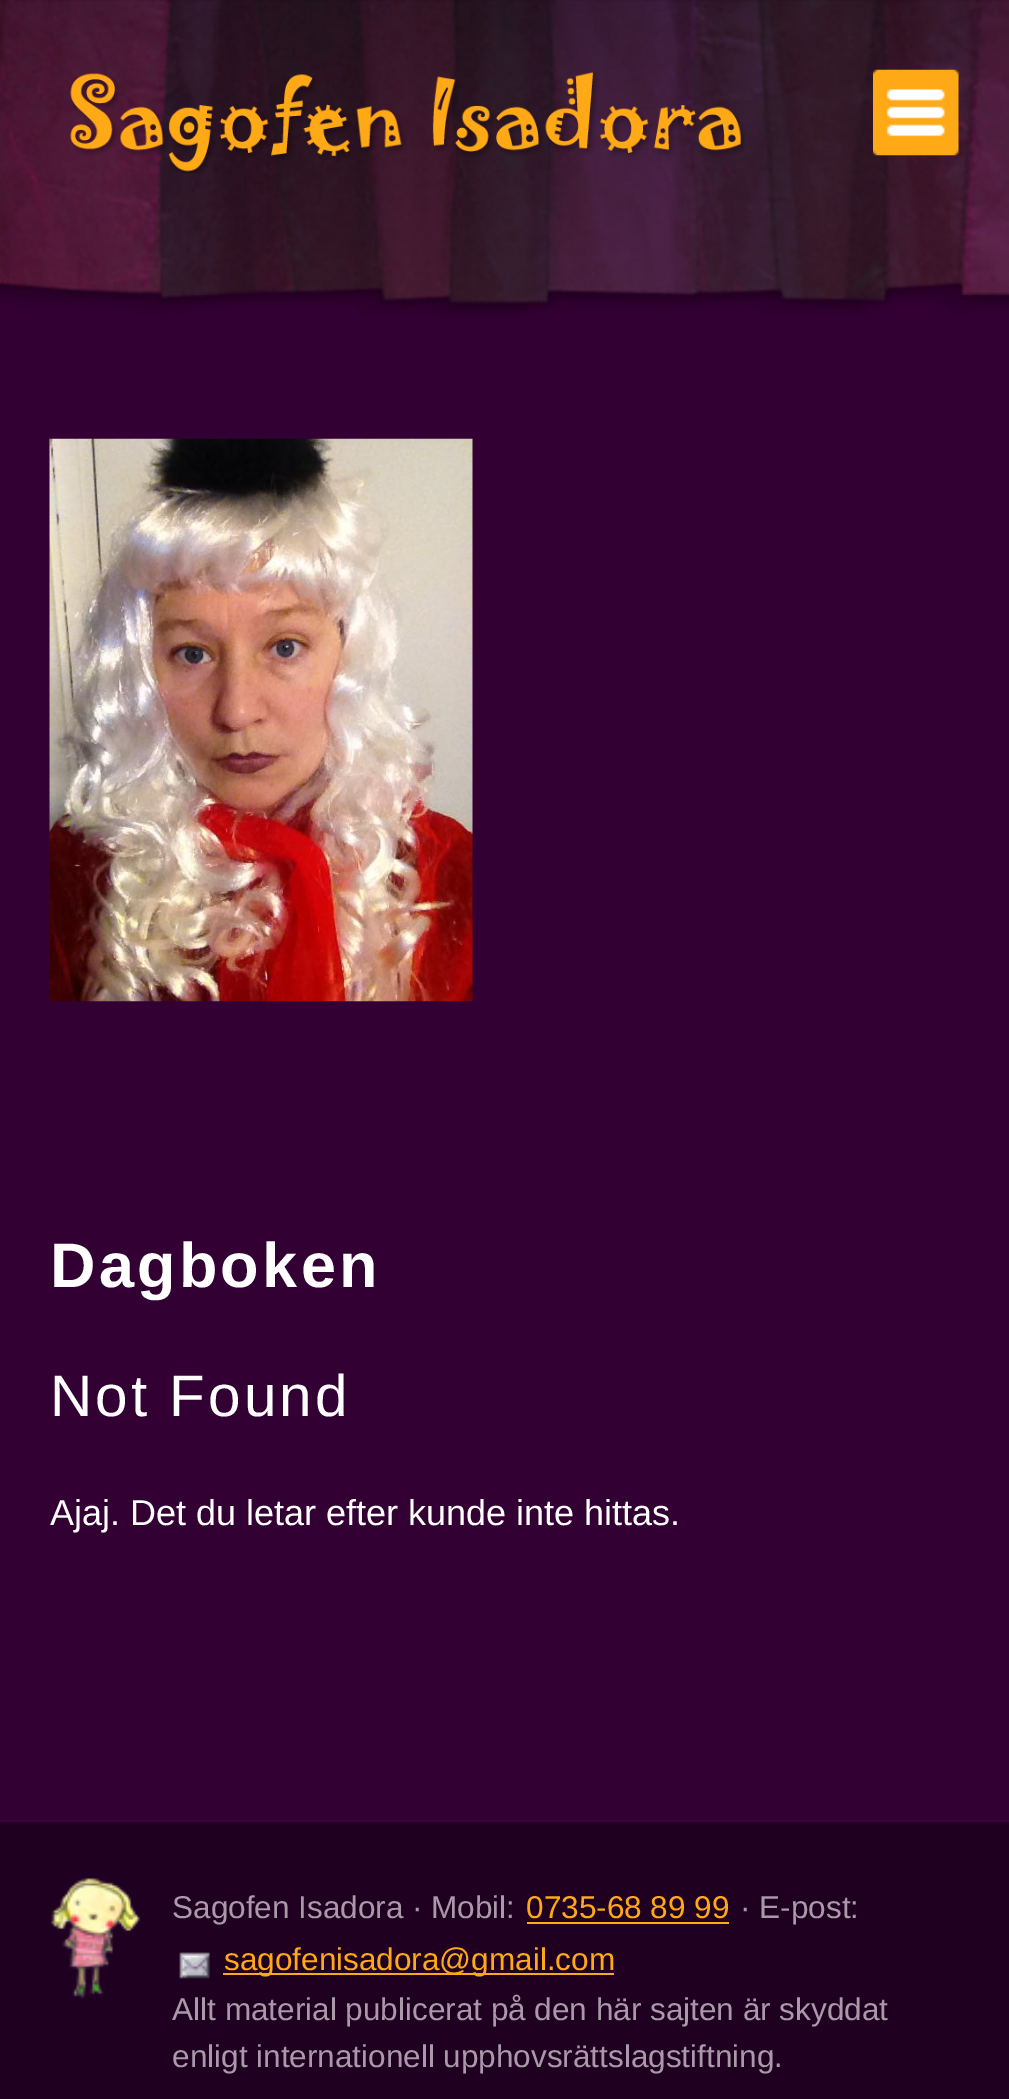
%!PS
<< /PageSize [1009 2099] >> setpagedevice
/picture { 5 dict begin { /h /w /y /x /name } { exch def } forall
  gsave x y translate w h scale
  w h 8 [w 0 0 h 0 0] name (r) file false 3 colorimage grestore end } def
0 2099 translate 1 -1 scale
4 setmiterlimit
0.2 0 0.2 setrgbcolor
0 0 1009 2099 rectfill
(img1.rgb) 0 0 1009 317 picture
(img2.rgb) 70 71 675 102 picture
(img3.rgb) 873 69 86 87 picture
(img4.rgb) 49 438 424 564 picture
/LiberationSans-Bold [63 0 0 -63 0 0] selectfont
1 setgray
50 1287 moveto 3.25 0 (Dagboken) ashow
/LiberationSans-Regular [58.5 0 0 -58.5 0 0] selectfont
50 1416 moveto 3 0 (Not Found) ashow
/LiberationSans-Regular [36 0 0 -36 0 0] selectfont
50 1525 moveto (Ajaj. Det du letar efter kunde inte hittas.) show
0.125 0 0.125 setrgbcolor
0 1822 1009 277 rectfill
0.243 0 0.243 setrgbcolor
0 1820 1009 2 rectfill
(img5.rgb) 51 1878 89 121 picture
/LiberationSans-Regular [31.5 0 0 -31.5 0 0] selectfont
0.663 0.6 0.663 setrgbcolor
172 1918 moveto (Sagofen Isadora · Mobil:) show
1 0.663 0.086 setrgbcolor
526 1918 moveto (0735-68 89 99) show
527 1922 202 2 rectfill
0.663 0.6 0.663 setrgbcolor
740 1918 moveto (· E-post:) show
(img6.rgb) 179 1952 31 27 picture
1 0.663 0.086 setrgbcolor
223 1973 391 2 rectfill
224 1970 moveto (sagofenisadora@gmail.com) show
0.663 0.6 0.663 setrgbcolor
172 2020 moveto (Allt material publicerat på den här sajten är skyddat) show
172 2067 moveto (enligt internationell upphovsrättslagstiftning.) show
showpage
